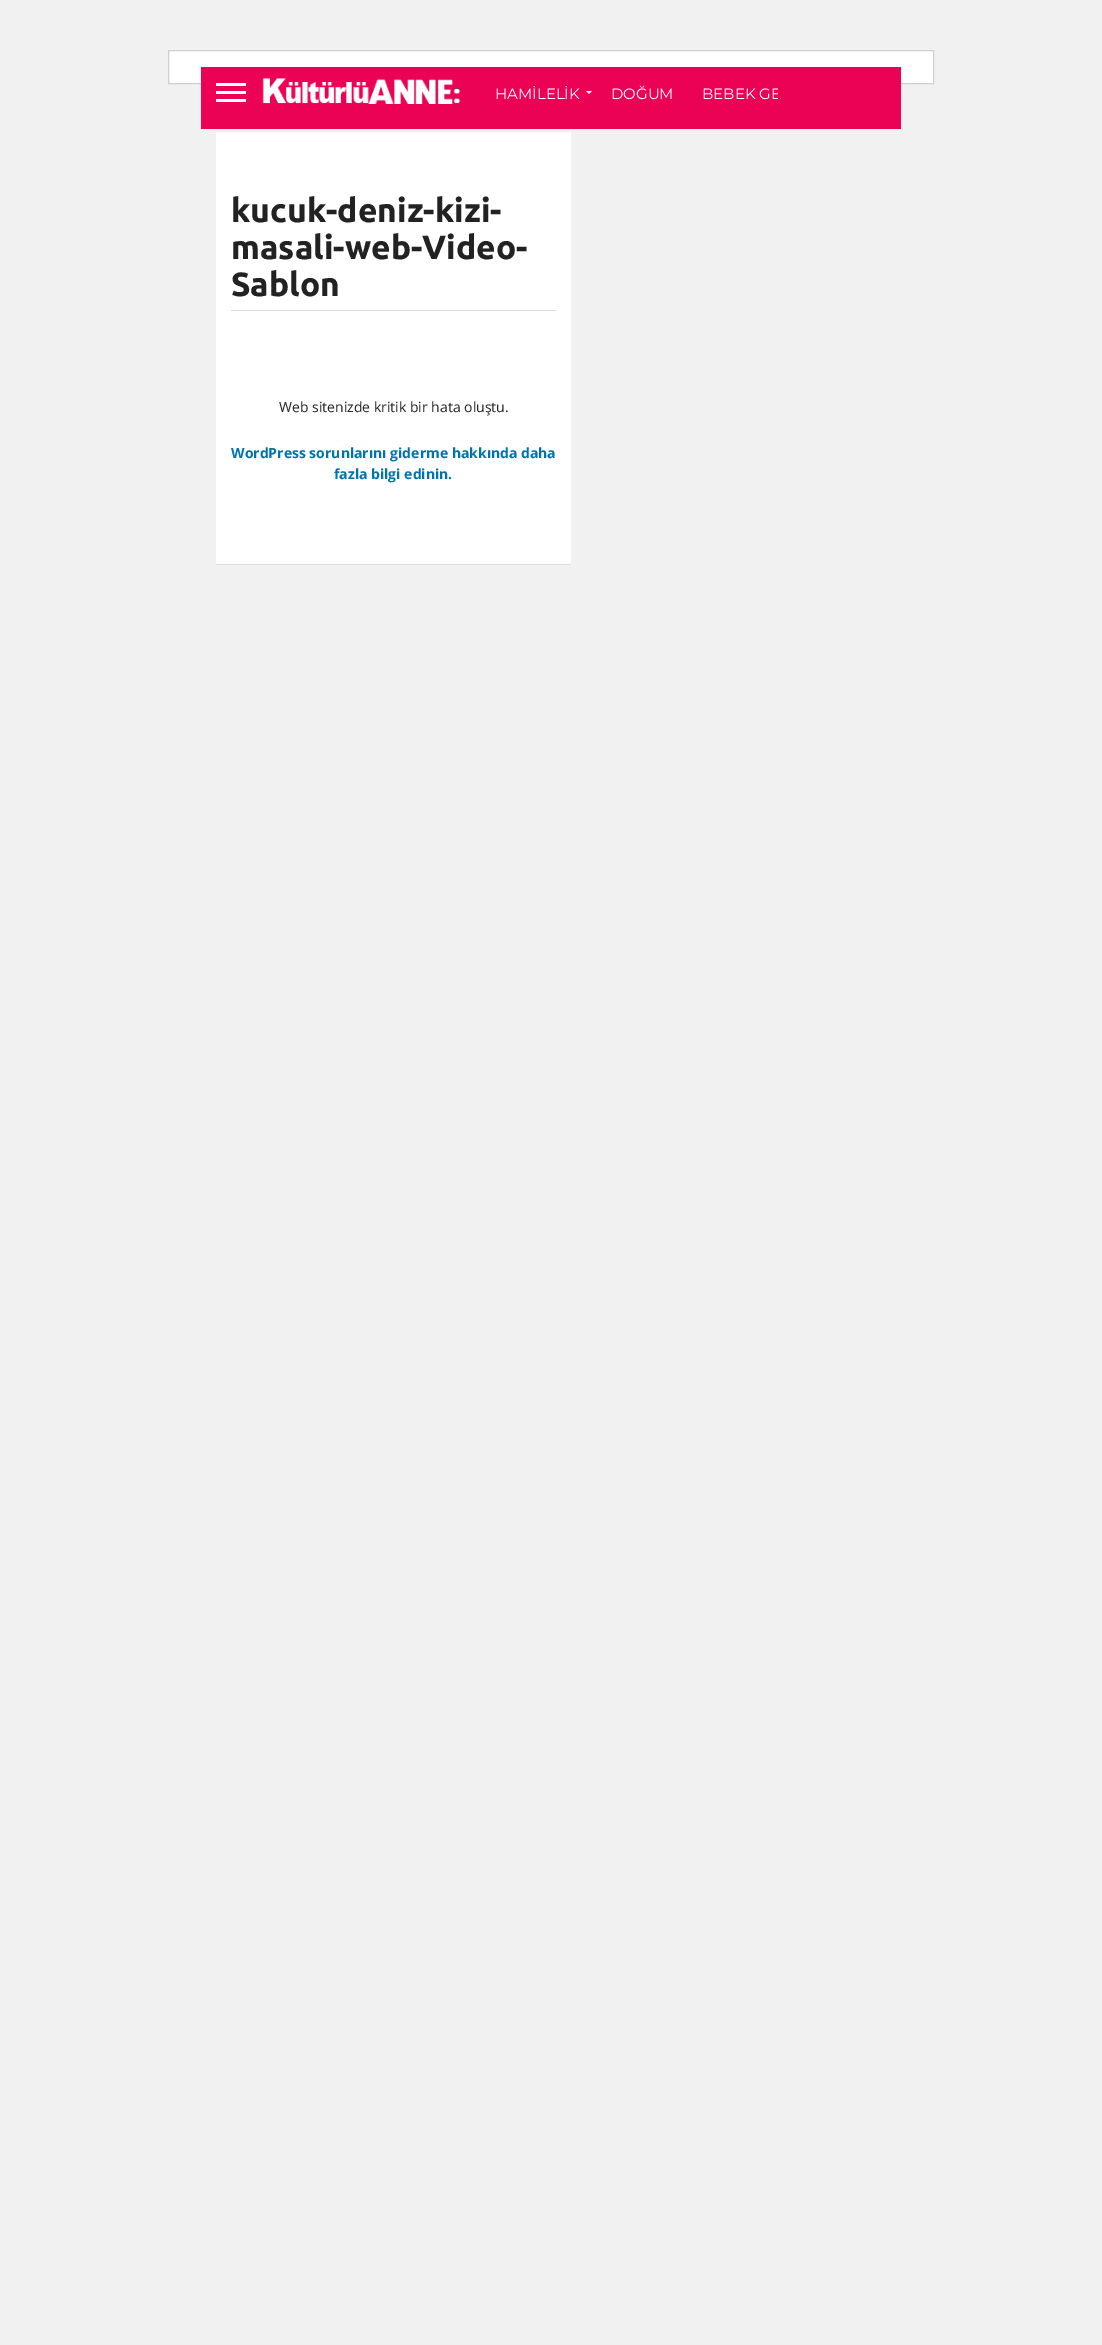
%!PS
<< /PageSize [1102 2345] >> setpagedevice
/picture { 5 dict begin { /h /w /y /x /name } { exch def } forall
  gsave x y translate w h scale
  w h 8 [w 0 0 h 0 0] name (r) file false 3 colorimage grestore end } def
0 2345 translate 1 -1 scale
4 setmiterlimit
0.945 setgray
0 0 1102 2345 rectfill
1 setgray
newpath 168.5 50.5 moveto 933.5 50.5 lineto 933.5 83.5 lineto 168.5 83.5 lineto closepath gsave fill grestore
0.8 0.816 0.831 setrgbcolor
stroke
0.922 0.008 0.329 setrgbcolor
201 67 700 62 rectfill
1 setgray
216 83 30 3 rectfill
216 91 30 3 rectfill
216 99 30 3 rectfill
(img1.rgb) 262 78 199 26 picture
/Montserrat-Regular [15 0 0 -15 0 0] selectfont
495 99 moveto (HAMİLELİK) show
newpath 586 91 moveto 592 91 lineto 589 94 lineto closepath fill
611 99 moveto (DOĞUM) show
702 99 moveto (BEBEK GE) show
0.922 0.008 0.329 setrgbcolor
778 88 2 11 rectfill
1 setgray
216 132 355 432 rectfill
0.867 setgray
216 564 355 1 rectfill
0.855 setgray
231 310 325 1 rectfill
/Ubuntu-Bold [33.5 0 0 -33.5 0 0] selectfont
0.133 setgray
231 222 moveto (kucuk-deniz-kizi-) show
231 259 moveto (masali-web-Video-) show
231 296 moveto (Sablon) show
/OpenSans-Regular [14 0 0 -14 0 0] selectfont
279 412 moveto (Web sitenizde kritik bir hata oluştu.) show
/OpenSans-Bold [14 0 0 -14 0 0] selectfont
0 0.451 0.667 setrgbcolor
231 458 moveto (WordPress sorunlarını giderme hakkında daha) show
334 479 moveto (fazla bilgi edinin.) show
showpage
